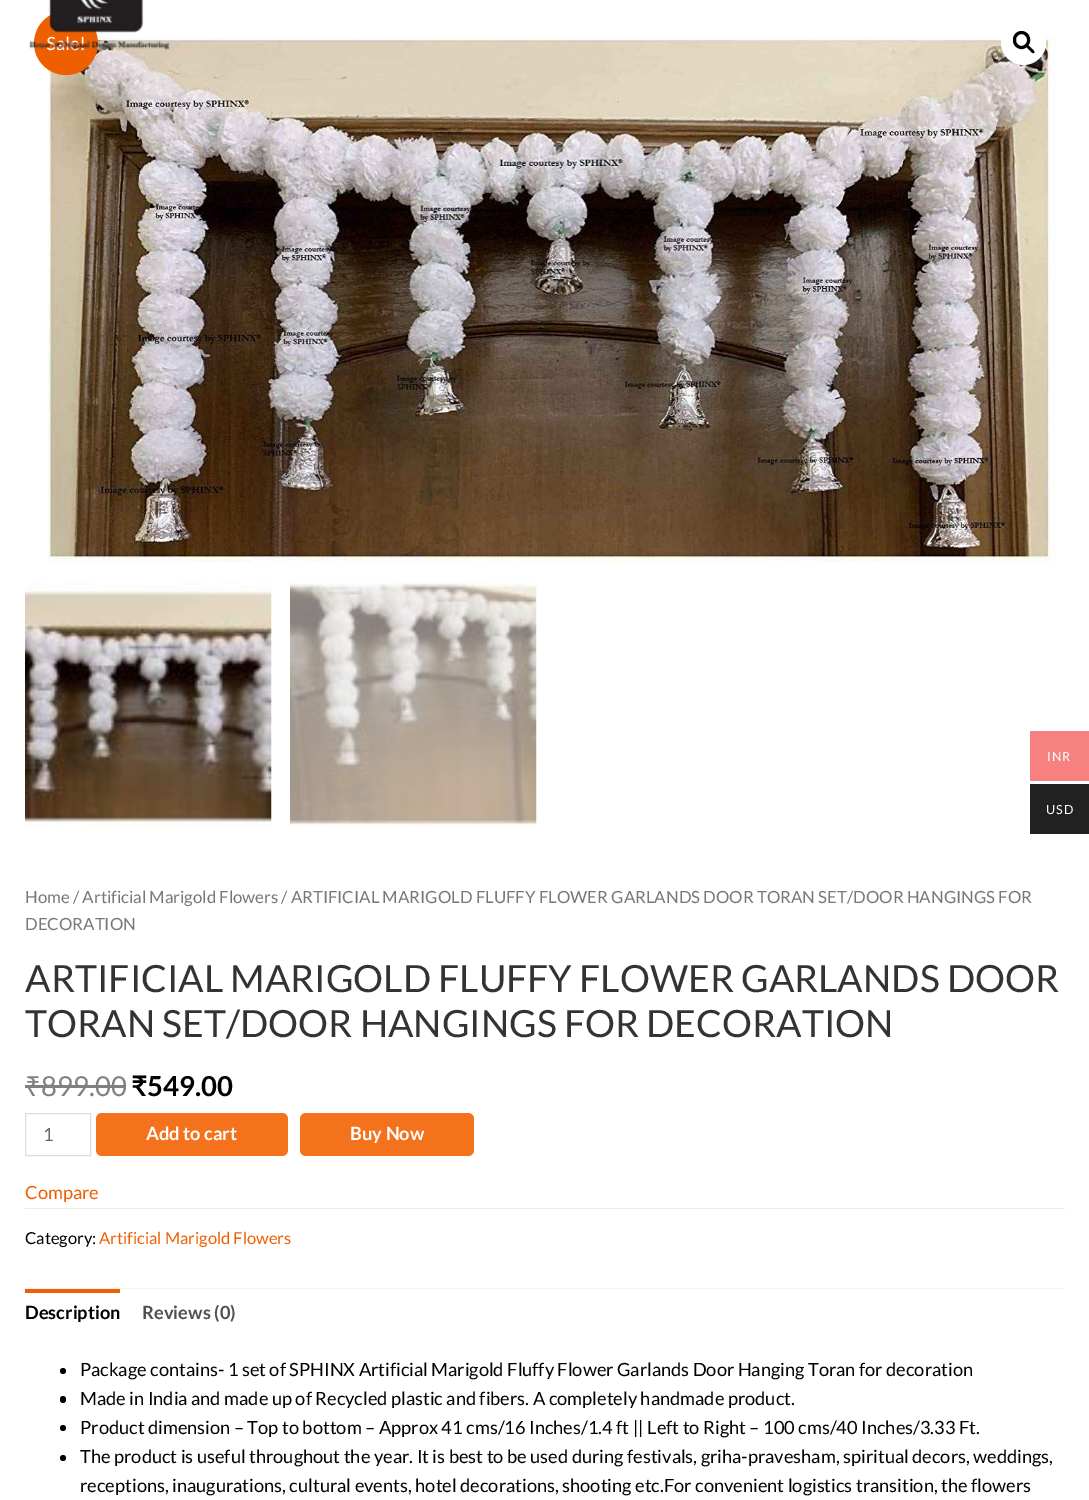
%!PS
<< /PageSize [1089 1500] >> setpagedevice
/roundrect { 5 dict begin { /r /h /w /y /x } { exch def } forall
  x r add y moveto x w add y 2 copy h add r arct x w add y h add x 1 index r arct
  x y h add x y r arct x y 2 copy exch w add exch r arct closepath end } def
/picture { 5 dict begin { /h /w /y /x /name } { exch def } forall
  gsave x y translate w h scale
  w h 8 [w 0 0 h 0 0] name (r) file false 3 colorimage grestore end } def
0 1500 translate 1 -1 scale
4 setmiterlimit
1 setgray
0 0 1089 1500 rectfill
(img2.rgb) 48 36 1008 529 picture
0.933 0.373 0.004 setrgbcolor
newpath 66 43 32 0 360 arc closepath fill
/Lato-Regular [18.25 0 0 -18.25 0 0] selectfont
1 setgray
46 50 moveto (Sale!) show
(img1.rgb) 29 0 141 50 picture
newpath 1023.5 42.5 22.5 0 360 arc closepath fill
0 setgray
3 setlinewidth
1014.5 32.5 14 15 7 roundrect stroke
newpath 1027 45.5 moveto 1028.5 44.5 1030.5 47.5 1031.5 48.5 curveto 1032 49 1035.5 51.5 1034 53 curveto 1032.5 54 1030.5 51 1029.5 50 curveto 1029 49.5 1025.5 47 1027 45.5 curveto closepath fill
(img3.rgb) 25 582 247 246 picture
(img4.rgb) 290 582 247 246 picture
/Lato-Regular [16.8 0 0 -16.8 0 0] selectfont
0.467 setgray
25 903 moveto (Home / Artificial Marigold Flowers) show
281 903 moveto (/ ARTIFICIAL MARIGOLD FLUFFY FLOWER GARLANDS DOOR TORAN SET/DOOR HANGINGS FOR) show
25 930 moveto (DECORATION) show
/Lato-Regular [37.5 0 0 -37.5 0 0] selectfont
0.2 setgray
25 992 moveto (ARTIFICIAL MARIGOLD FLUFFY FLOWER GARLANDS DOOR) show
25 1037 moveto (TORAN SET/DOOR HANGINGS FOR DECORATION) show
/NotoSans-Regular [27.5 0 0 -27.5 0 0] selectfont
0.502 setgray
25 1096 moveto (₹) show
/Lato-Regular [27.5 0 0 -27.5 0 0] selectfont
41 1096 moveto (899.00) show
25 1085 16 3 rectfill
41 1085 85 3 rectfill
/Lato-Bold [27.5 0 0 -27.5 0 0] selectfont
0 setgray
131 1096 moveto (₹) show
/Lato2-Bold [27.5 0 0 -27.5 0 0] selectfont
147 1096 moveto (549.00) show
0.867 setgray
1 setlinewidth
25.5 1113.5 65 42 rectstroke
/Lato-Regular [18.25 0 0 -18.25 0 0] selectfont
0.4 setgray
43 1141 moveto (1) show
0.961 0.447 0.11 setrgbcolor
96 1113 192 43 6 roundrect fill
/Lato2-Bold [18.25 0 0 -18.25 0 0] selectfont
1 setgray
146 1140 moveto (Add to cart) show
0.961 0.447 0.11 setrgbcolor
300 1113 174 43 6 roundrect fill
1 setgray
350 1140 moveto (Buy Now) show
/Lato-Regular [18.25 0 0 -18.25 0 0] selectfont
0.933 0.373 0.004 setrgbcolor
25 1199 moveto (Compare) show
0.922 setgray
25 1208 1040 1 rectfill
/Lato-Regular [16.5 0 0 -16.5 0 0] selectfont
0 setgray
25 1244 moveto (Category:) show
0.933 0.373 0.004 setrgbcolor
99 1244 moveto (Artificial Marigold Flowers) show
0.949 setgray
25 1288 1040 1 rectfill
0.933 0.373 0.004 setrgbcolor
25 1289 95 4 rectfill
/Lato2-Bold [18.25 0 0 -18.25 0 0] selectfont
0 setgray
25 1319 moveto (Description) show
0.318 setgray
142 1319 moveto (Reviews \(0\)) show
0 setgray
newpath 63 1371 3 0 360 arc closepath fill
/Lato-Regular [18.25 0 0 -18.25 0 0] selectfont
80 1376 moveto (Package contains- 1 set of SPHINX Artificial Marigold Fluffy Flower Garlands Door Hanging Toran for decoration) show
60 1396 6 7 3 roundrect fill
80 1405 moveto (Made in India and made up of Recycled plastic and fibers. A completely handmade product.) show
newpath 63 1428 3 0 360 arc closepath fill
80 1434 moveto (Product dimension – Top to bottom – Approx 41 cms/16 Inches/1.4 ft || Left to Right – 100 cms/40 Inches/3.33 Ft.) show
newpath 63 1458 3 0 360 arc closepath fill
80 1463 moveto (The product is useful throughout the year. It is best to be used during festivals, griha-pravesham, spiritual decors, weddings,) show
80 1492 moveto (receptions, inaugurations, cultural events, hotel decorations, shooting etc.For convenient logistics transition, the flowers) show
0.969 0.502 0.502 setrgbcolor
1030 731 59 50 rectfill
/Lato-Regular [12.5 0 0 -12.5 0 0] selectfont
1 setgray
1047 761 moveto 1 0 (INR) ashow
0.129 setgray
1030 784 59 50 rectfill
1 setgray
1046 814 moveto 1 0 (USD) ashow
showpage
